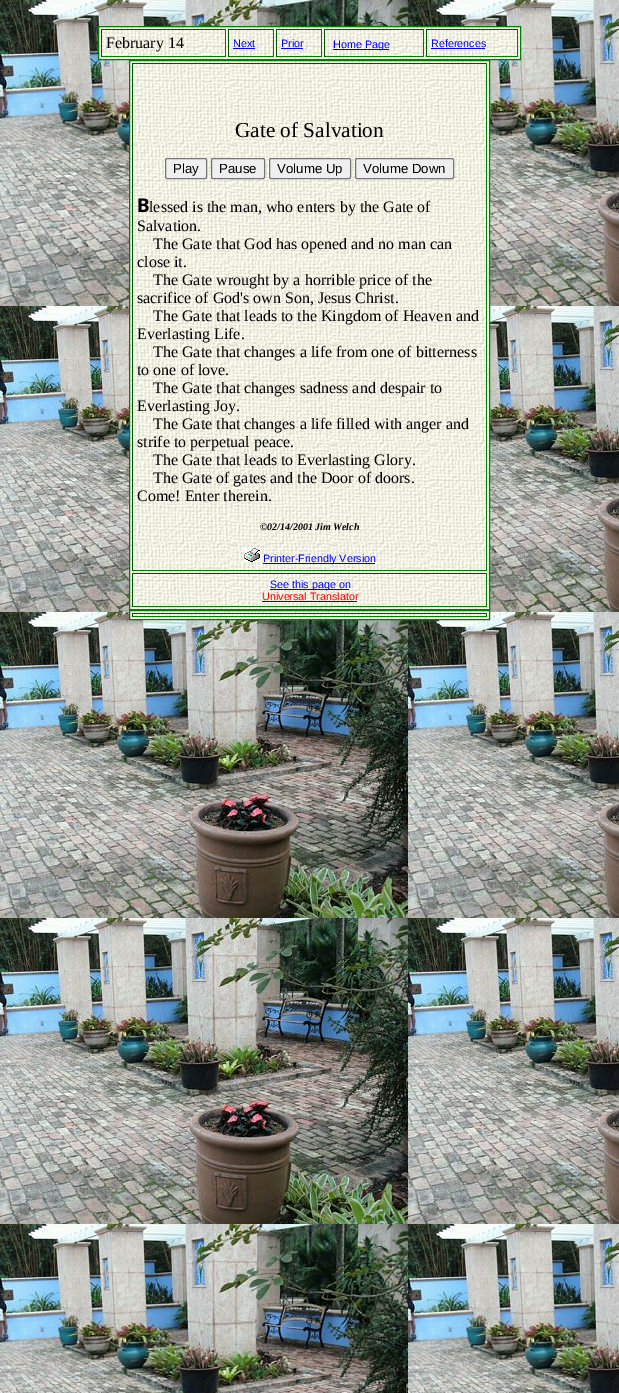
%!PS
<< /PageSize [619 1393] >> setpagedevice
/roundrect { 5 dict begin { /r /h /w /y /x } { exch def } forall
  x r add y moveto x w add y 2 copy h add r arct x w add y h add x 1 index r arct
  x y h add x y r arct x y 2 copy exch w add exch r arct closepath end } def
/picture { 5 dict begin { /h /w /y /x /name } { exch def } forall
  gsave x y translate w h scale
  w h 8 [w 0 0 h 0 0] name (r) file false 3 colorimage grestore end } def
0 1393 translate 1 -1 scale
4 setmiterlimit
1 setgray
0 0 619 1393 rectfill
(img1.rgb) 0 0 619 1393 picture
(img2.rgb) 99 27 421 32 picture
0 0.502 0 setrgbcolor
98.5 26.5 422 33 rectstroke
0 0.333 0 setrgbcolor
101 29 125 1 rectfill
0 0.502 0 setrgbcolor
225 29 1 28 rectfill
101 56 125 1 rectfill
0 0.333 0 setrgbcolor
101 29 1 28 rectfill
/LiberationSerif-Regular [16 0 0 -16 0 0] selectfont
0 setgray
106 48 moveto (February 14) show
0 0.333 0 setrgbcolor
228 29 46 1 rectfill
0 0.502 0 setrgbcolor
273 29 1 28 rectfill
228 56 46 1 rectfill
0 0.333 0 setrgbcolor
228 29 1 28 rectfill
/LiberationSans-Regular [10.75 0 0 -10.75 0 0] selectfont
0 0 1 setrgbcolor
233 47 moveto (Next) show
233 48 22 1 rectfill
0 0.333 0 setrgbcolor
276 29 46 1 rectfill
0 0.502 0 setrgbcolor
321 29 1 28 rectfill
276 56 46 1 rectfill
0 0.333 0 setrgbcolor
276 29 1 28 rectfill
0 0 1 setrgbcolor
281 47 moveto (Prior) show
281 48 22 1 rectfill
0 0.333 0 setrgbcolor
324 29 100 1 rectfill
0 0.502 0 setrgbcolor
423 29 1 28 rectfill
324 56 100 1 rectfill
0 0.333 0 setrgbcolor
324 29 1 28 rectfill
0 0 1 setrgbcolor
333 49 56 1 rectfill
333 48 moveto (Home Page) show
0 0.333 0 setrgbcolor
426 29 92 1 rectfill
0 0.502 0 setrgbcolor
517 29 1 28 rectfill
426 56 92 1 rectfill
0 0.333 0 setrgbcolor
426 29 1 28 rectfill
0 0 1 setrgbcolor
431 47 moveto (References) show
431 48 54 1 rectfill
(img3.rgb) 130 61 359 548 picture
0 0.502 0 setrgbcolor
129.5 60.5 360 549 rectstroke
0 0.333 0 setrgbcolor
132 63 355 1 rectfill
0 0.502 0 setrgbcolor
486 63 1 508 rectfill
132 570 355 1 rectfill
0 0.333 0 setrgbcolor
132 63 1 508 rectfill
/LiberationSerif-Regular [21.25 0 0 -21.25 0 0] selectfont
0 setgray
235 137 moveto (Gate of Salvation) show
0.937 setgray
165.5 158.5 41 20 1.5 roundrect gsave fill grestore
0.463 setgray
stroke
/LiberationSans-Regular [13.25 0 0 -13.25 0 0] selectfont
0 setgray
173 173 moveto (Play) show
0.937 setgray
211.5 158.5 53 20 1.5 roundrect gsave fill grestore
0.463 setgray
stroke
0 setgray
219 173 moveto (Pause) show
0.937 setgray
269.5 158.5 81 20 1.5 roundrect gsave fill grestore
0.463 setgray
stroke
0 setgray
277 173 moveto (Volume Up) show
0.937 setgray
355.5 158.5 98 20 1.5 roundrect gsave fill grestore
0.463 setgray
stroke
0 setgray
363 173 moveto (Volume Down) show
/NotoSans-Bold [19 0 0 -19 0 0] selectfont
137 212 moveto (B) show
/LiberationSerif-Regular [16 0 0 -16 0 0] selectfont
149 212 moveto (lessed is the man, who enters by the Gate of) show
137 231 moveto (Salvation.) show
153 249 moveto (The Gate that God has opened and no man can) show
137 267 moveto (close it.) show
153 285 moveto (The Gate wrought by a horrible price of the) show
137 303 moveto (sacrifice of God's own Son, Jesus Christ.) show
153 321 moveto (The Gate that leads to the Kingdom of Heaven and) show
137 339 moveto (Everlasting Life.) show
153 357 moveto (The Gate that changes a life from one of bitterness) show
137 375 moveto (to one of love.) show
153 393 moveto (The Gate that changes sadness and despair to) show
137 411 moveto (Everlasting Joy.) show
153 429 moveto (The Gate that changes a life filled with anger and) show
137 447 moveto (strife to perpetual peace.) show
153 465 moveto (The Gate that leads to Everlasting Glory.) show
153 483 moveto (The Gate of gates and the Door of doors.) show
137 501 moveto (Come! Enter therein.) show
/LiberationSerif-Bold [10 0 0 -10 0 0] selectfont
260 530 moveto (©) show
/LiberationSerif-BoldItalic [10 0 0 -10 0 0] selectfont
267 530 moveto (02/14/2001 Jim Welch) show
(img4.rgb) 244 548 16 14 picture
0 0 1 setrgbcolor
263 563 112 1 rectfill
/LiberationSans-Regular [10.75 0 0 -10.75 0 0] selectfont
263 562 moveto (Printer-Friendly Version) show
0 0.333 0 setrgbcolor
132 573 355 1 rectfill
0 0.502 0 setrgbcolor
486 573 1 34 rectfill
132 606 355 1 rectfill
0 0.333 0 setrgbcolor
132 573 1 34 rectfill
0 0 1 setrgbcolor
270 589 79 1 rectfill
270 588 moveto (See this page on) show
1 0 0 setrgbcolor
262 600 moveto (Universal Translator) show
0 0 1 setrgbcolor
262 601 95 1 rectfill
(img5.rgb) 130 611 359 8 picture
0 0.502 0 setrgbcolor
129.5 610.5 360 9 rectstroke
0 0.333 0 setrgbcolor
132 613 355 1 rectfill
0 0.502 0 setrgbcolor
486 613 1 4 rectfill
132 616 355 1 rectfill
0 0.333 0 setrgbcolor
132 613 1 4 rectfill
showpage
